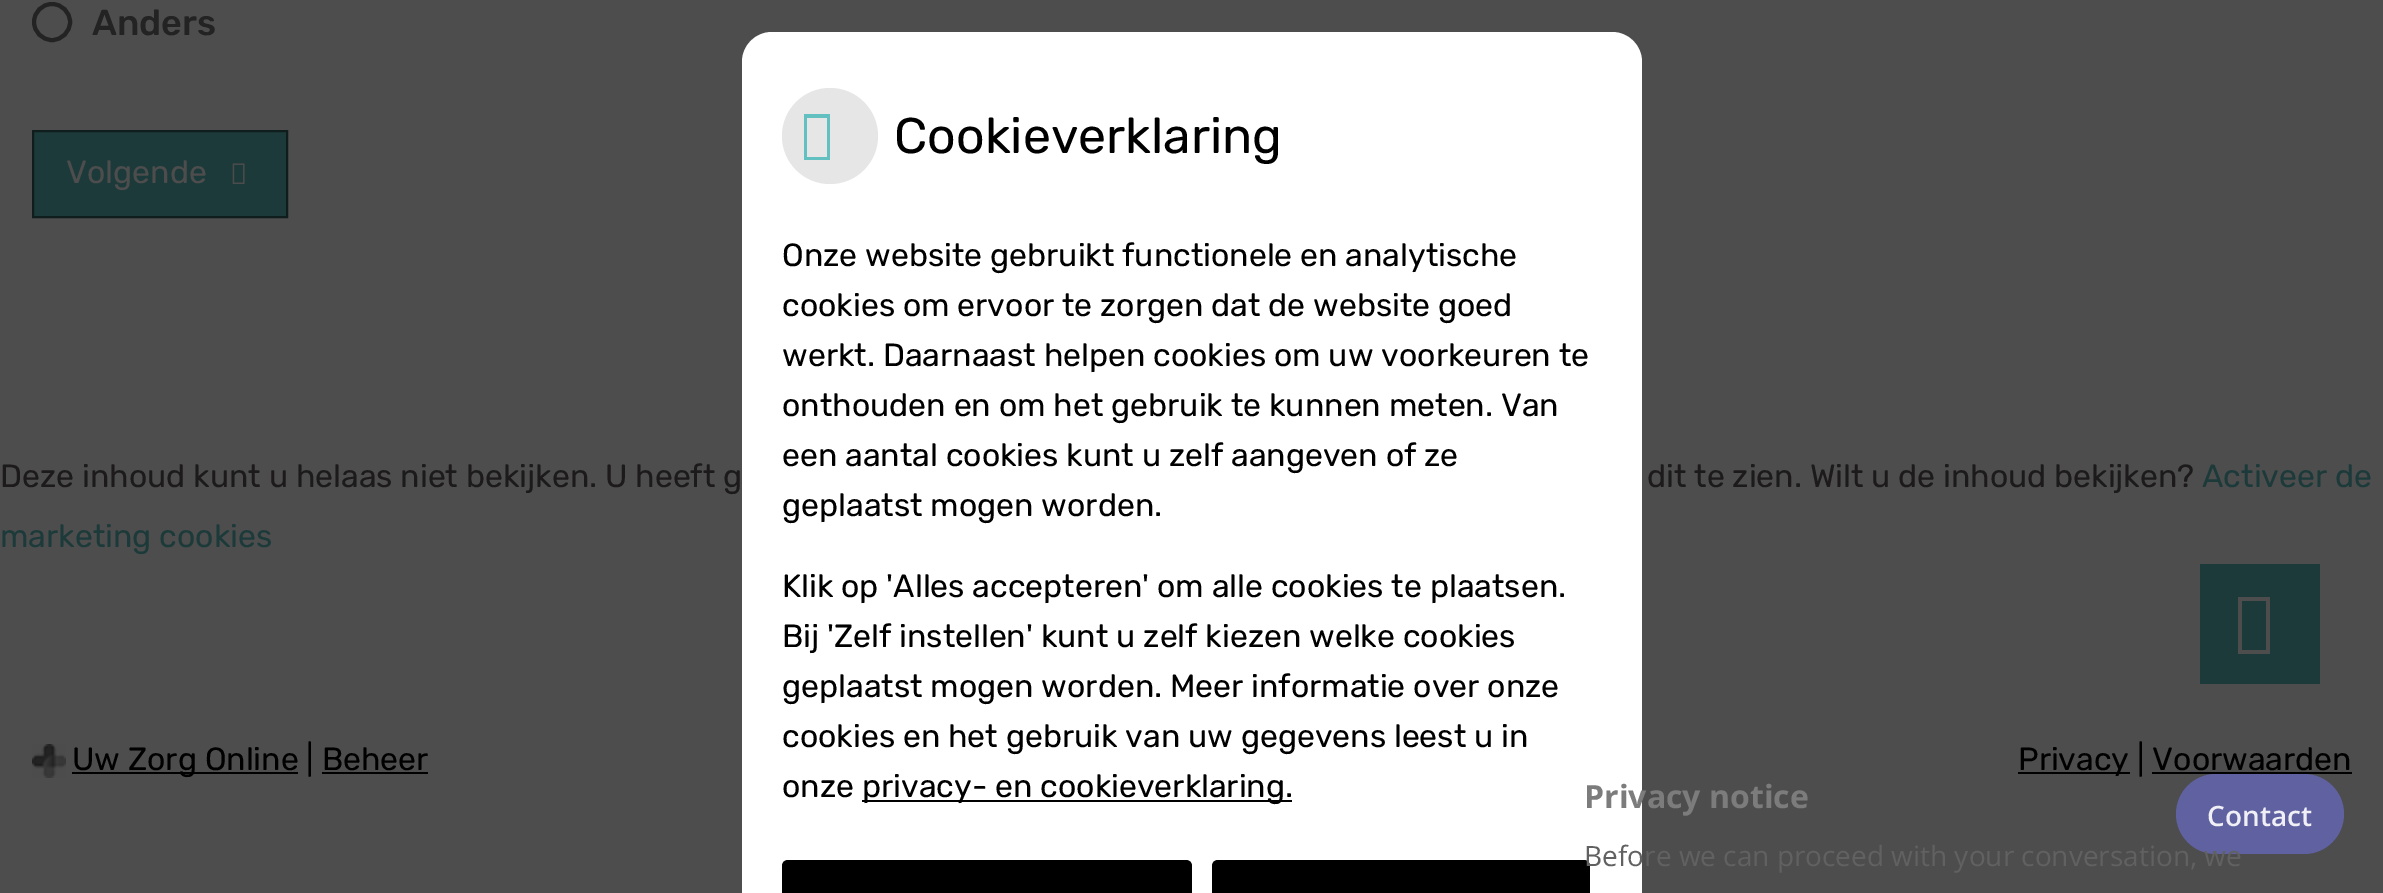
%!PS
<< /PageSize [2383 893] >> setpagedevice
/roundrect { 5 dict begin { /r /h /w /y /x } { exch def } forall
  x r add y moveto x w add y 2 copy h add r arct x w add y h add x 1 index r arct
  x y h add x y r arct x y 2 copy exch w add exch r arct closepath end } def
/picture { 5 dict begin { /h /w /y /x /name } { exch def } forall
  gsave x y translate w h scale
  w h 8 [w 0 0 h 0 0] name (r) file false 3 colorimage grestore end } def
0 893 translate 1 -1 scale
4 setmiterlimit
0.302 setgray
0 0 2383 893 rectfill
0.137 setgray
4 setlinewidth
newpath 52 22 18 0 360 arc closepath stroke
/Rubik-Light [36 0 0 -36 0 0] selectfont
92 35 moveto (Anders) show
0.114 0.227 0.227 setrgbcolor
newpath 33 131 moveto 287 131 lineto 287 217 lineto 33 217 lineto closepath gsave fill grestore
0.059 0.114 0.114 setrgbcolor
2 setlinewidth
stroke
/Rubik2-Light [32 0 0 -32 0 0] selectfont
0.302 setgray
66 183 moveto (Volgende) show
(img1.rgb) 232 163 13 21 picture
1 setgray
newpath 772 32 moveto 1612 32 lineto 1628.5 32 1642 45.5 1642 62 curveto 1642 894 lineto 742 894 lineto 742 62 lineto 742 45.5 755.5 32 772 32 curveto closepath fill
0.902 setgray
newpath 830 136 48 0 360 arc closepath fill
0.384 0.753 0.757 setrgbcolor
newpath 804 160 moveto 804 114 lineto 830 114 lineto 830 160 lineto closepath 807 157 moveto 827 157 lineto 827 118 lineto 807 118 lineto closepath fill
/Rubik2-Light [50 0 0 -50 0 0] selectfont
0 setgray
894 153 moveto (Cookieverklaring) show
/Rubik2-Light [32 0 0 -32 0 0] selectfont
782 266 moveto (Onze website gebruikt functionele en analytische) show
782 316 moveto (cookies om ervoor te zorgen dat de website goed) show
782 366 moveto (werkt. Daarnaast helpen cookies om uw voorkeuren te) show
782 416 moveto (onthouden en om het gebruik te kunnen meten. Van) show
782 466 moveto (een aantal cookies kunt u zelf aangeven of ze) show
782 516 moveto (geplaatst mogen worden.) show
782 597 moveto (Klik op 'Alles accepteren' om alle cookies te plaatsen.) show
782 647 moveto (Bij 'Zelf instellen' kunt u zelf kiezen welke cookies) show
782 697 moveto (geplaatst mogen worden. Meer informatie over onze) show
782 747 moveto (cookies en het gebruik van uw gegevens leest u in) show
782 797 moveto (onze) show
862 800 430 2 rectfill
862 797 moveto (privacy- en cookieverklaring.) show
newpath 788 860 moveto 1186 860 lineto 1189.5 860 1192 862.5 1192 866 curveto 1192 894 lineto 782 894 lineto 782 866 lineto 782 862.5 784.5 860 788 860 curveto closepath fill
newpath 1218 860 moveto 1584 860 lineto 1587.5 860 1590 862.5 1590 866 curveto 1590 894 lineto 1212 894 lineto 1212 866 lineto 1212 862.5 1214.5 860 1218 860 curveto closepath fill
0.11 0.102 0.102 setrgbcolor
0 487 moveto (Deze inhoud kunt u helaas niet bekijken. U heeft g) show
1647 487 moveto (dit te zien. Wilt u de inhoud bekijken?) show
0.114 0.227 0.227 setrgbcolor
2202 487 moveto (Activeer de) show
0 547 moveto (marketing cookies) show
2200 564 120 120 rectfill
0.302 setgray
newpath 2238 654 moveto 2238 597 lineto 2270 597 lineto 2270 654 lineto closepath 2242 650 moveto 2266 650 lineto 2266 601 lineto 2242 601 lineto closepath fill
(img2.rgb) 32 744 34 34 picture
0 setgray
72 772 226 2 rectfill
72 770 moveto (Uw Zorg Online | Beheer) show
322 772 106 2 rectfill
2018 772 112 2 rectfill
2018 770 moveto (Privacy | Voorwaarden) show
2152 772 200 2 rectfill
/OpenSans-Bold [32 0 0 -32 0 0] selectfont
0.486 setgray
1584 808 moveto (Privacy notice) show
0.373 0.38 0.627 setrgbcolor
2176 774 168 80 40 roundrect fill
/OpenSans-Regular [28 0 0 -28 0 0] selectfont
0.38 setgray
1584 866 moveto (Before we can proceed with your conversation, we) show
/OpenSans-SemiBold [28 0 0 -28 0 0] selectfont
0.937 0.937 0.961 setrgbcolor
2207 826 moveto (Contact) show
showpage
